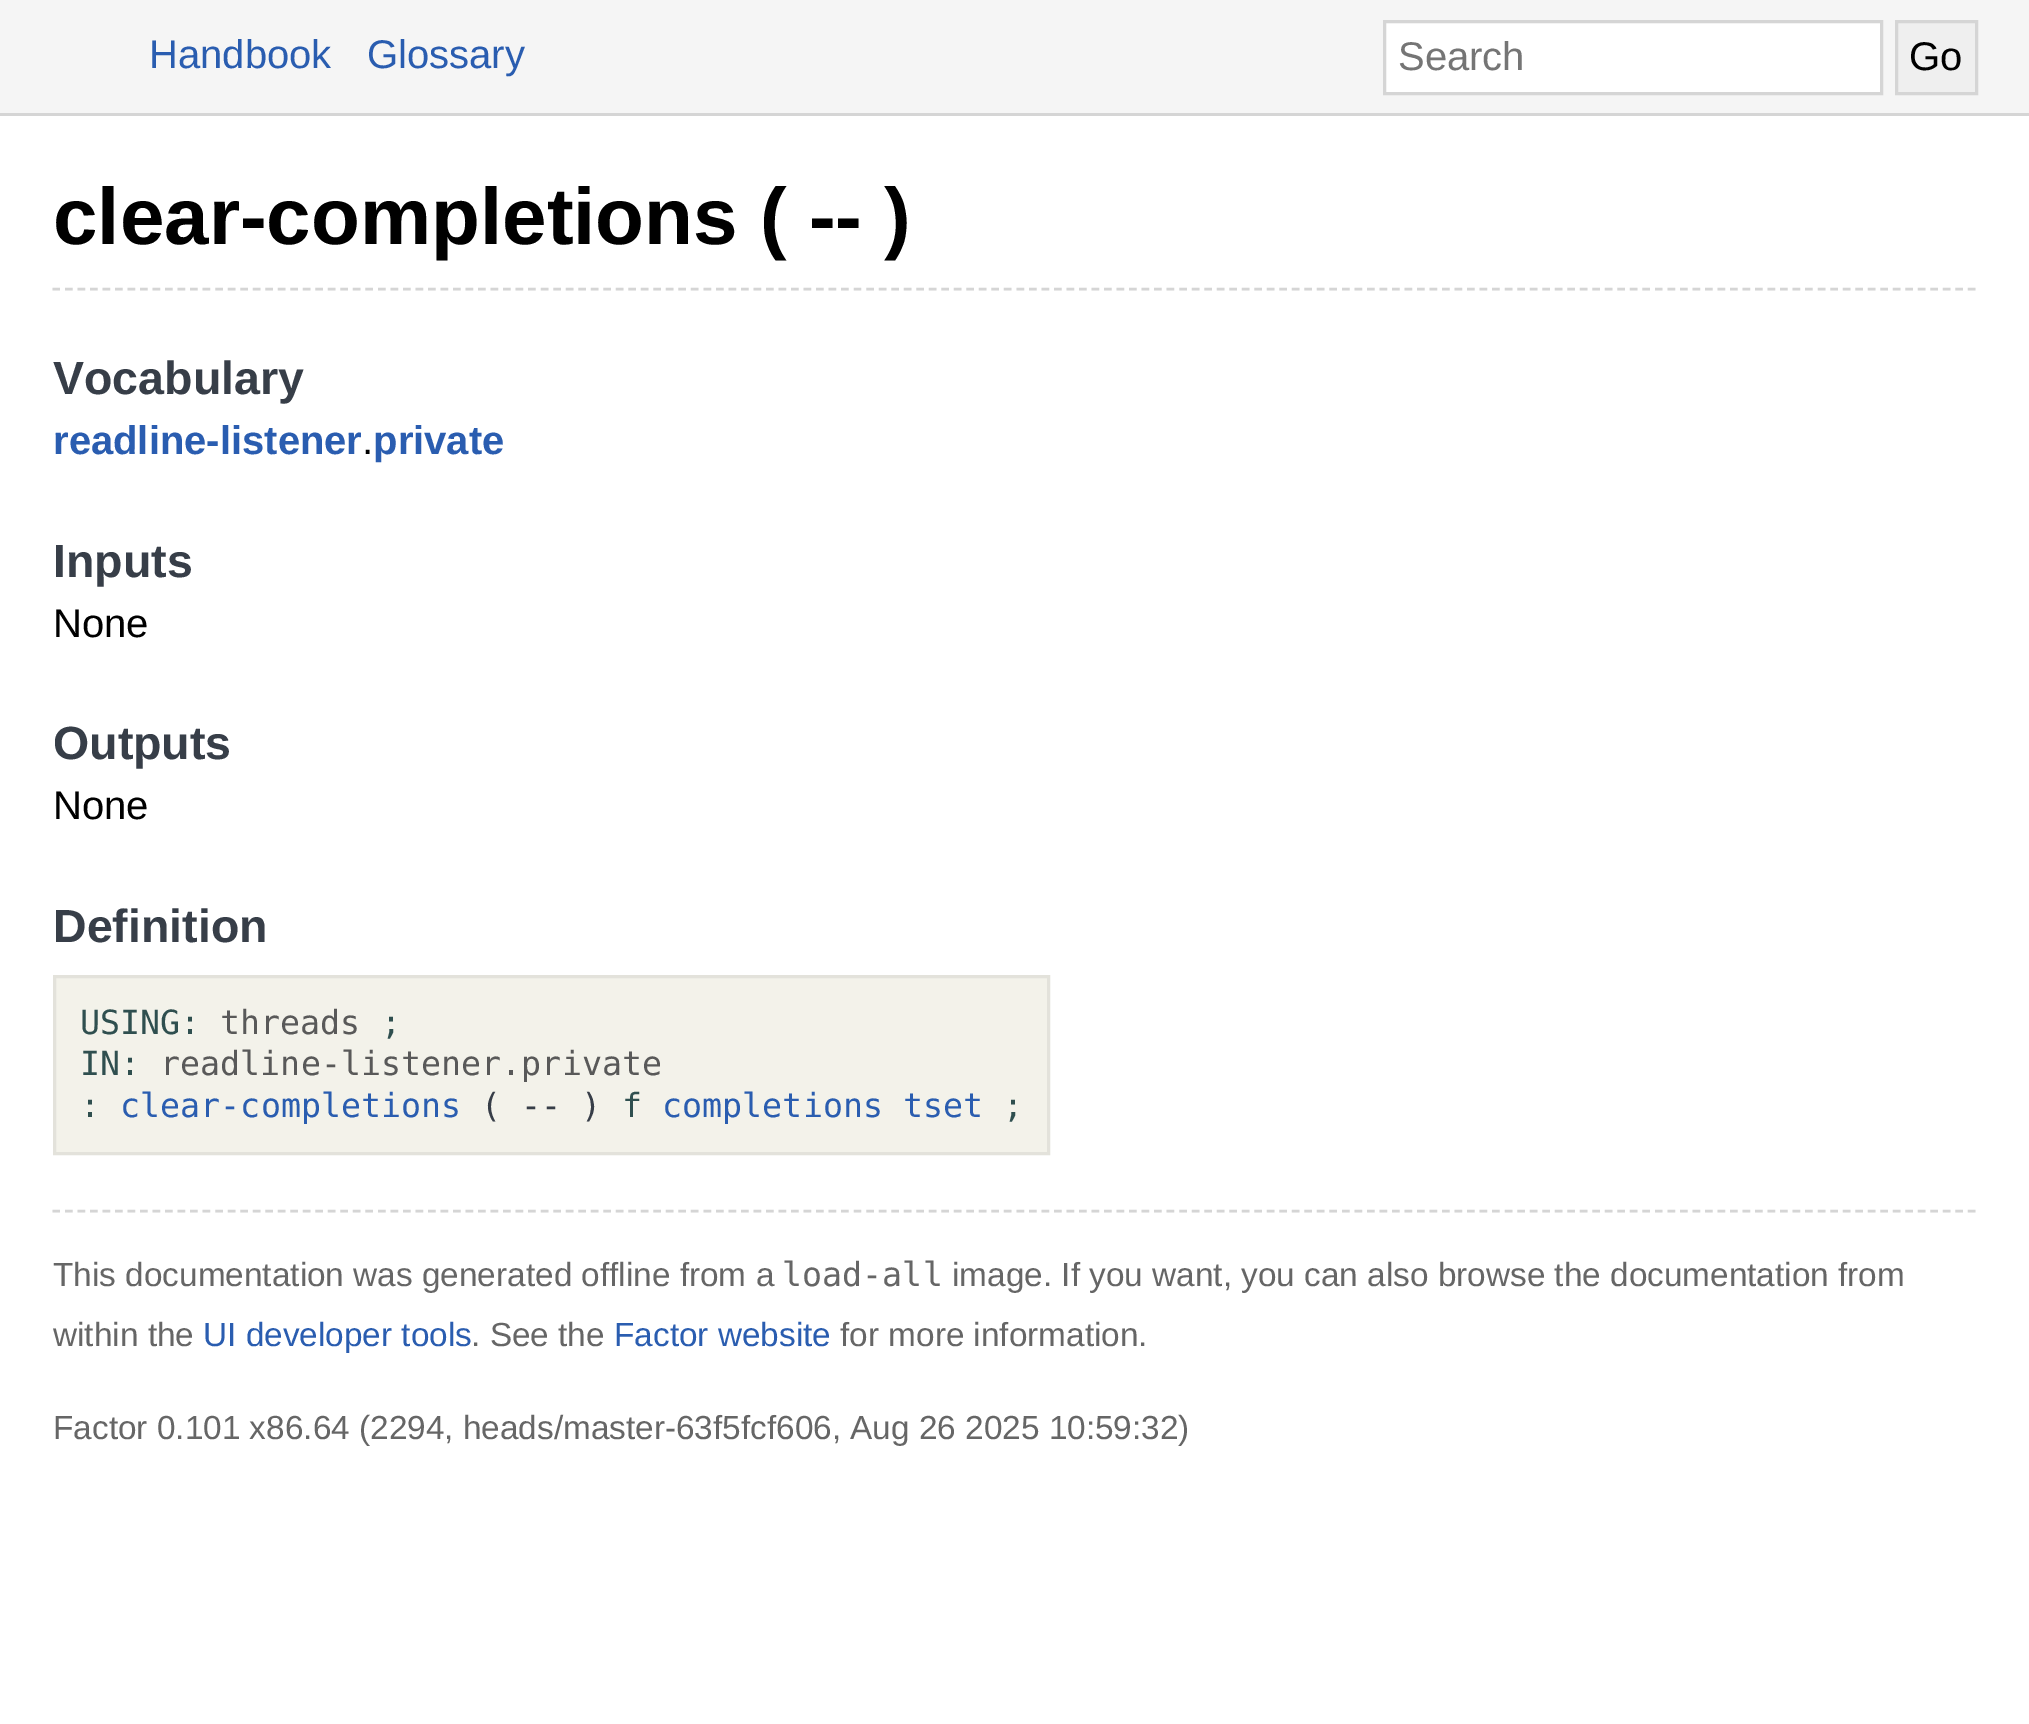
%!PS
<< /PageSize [2029 1724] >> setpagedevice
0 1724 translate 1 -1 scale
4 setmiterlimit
1 setgray
0 0 2029 1724 rectfill
0.961 setgray
0 0 2029 113 rectfill
0.835 setgray
0 113 2029 3 rectfill
/LiberationSans-Regular [40 0 0 -40 0 0] selectfont
0.165 0.365 0.69 setrgbcolor
149 68 moveto (Handbook) show
367 68 moveto (Glossary) show
1 setgray
newpath 1384.5 21.5 moveto 1881.5 21.5 lineto 1881.5 93.5 lineto 1384.5 93.5 lineto closepath gsave fill grestore
0.835 setgray
3 setlinewidth
stroke
0.459 setgray
1398 70 moveto (Search) show
0.937 setgray
newpath 1896.5 21.5 moveto 1976.5 21.5 lineto 1976.5 93.5 lineto 1896.5 93.5 lineto closepath gsave fill grestore
0.835 setgray
stroke
0 setgray
1909 70 moveto (Go) show
0.835 setgray
2.5 setlinewidth
[7.5 5.02] 0 setdash
newpath 52.5 289 moveto 1977.5 289 lineto stroke
/LiberationSans-Bold [80 0 0 -80 0 0] selectfont
0 setgray
53 244 moveto (clear-completions \( -- \)) show
/LiberationSans-Bold [46.5 0 0 -46.5 0 0] selectfont
0.216 0.243 0.282 setrgbcolor
53 394 moveto (Vocabulary) show
/LiberationSans-Bold [40 0 0 -40 0 0] selectfont
0.165 0.365 0.69 setrgbcolor
53 454 moveto (readline-listener private) show
/LiberationSans-Regular [40 0 0 -40 0 0] selectfont
0 setgray
362 454 moveto (.) show
/LiberationSans-Bold [46.5 0 0 -46.5 0 0] selectfont
0.216 0.243 0.282 setrgbcolor
53 577 moveto (Inputs) show
/LiberationSans-Regular [40 0 0 -40 0 0] selectfont
0 setgray
53 637 moveto (None) show
/LiberationSans-Bold [46.5 0 0 -46.5 0 0] selectfont
0.216 0.243 0.282 setrgbcolor
53 759 moveto (Outputs) show
/LiberationSans-Regular [40 0 0 -40 0 0] selectfont
0 setgray
53 819 moveto (None) show
/LiberationSans-Bold [46.5 0 0 -46.5 0 0] selectfont
0.216 0.243 0.282 setrgbcolor
53 942 moveto (Definition) show
0.953 0.949 0.918 setrgbcolor
newpath 54.5 976.5 moveto 1048.5 976.5 lineto 1048.5 1153.5 lineto 54.5 1153.5 lineto closepath gsave fill grestore
0.89 0.886 0.859 setrgbcolor
3 setlinewidth
[] 0 setdash
stroke
/DejaVuSansMono-Regular [33.35 0 0 -33.35 0 0] selectfont
0.184 0.31 0.31 setrgbcolor
80 1034 moveto (USING:) show
0.349 setgray
220 1034 moveto (threads) show
0.184 0.31 0.31 setrgbcolor
381 1034 moveto (;) show
80 1075 moveto (IN:) show
0.349 setgray
160 1075 moveto (readline-listener.private) show
0.184 0.31 0.31 setrgbcolor
80 1117 moveto (:) show
0.165 0.365 0.69 setrgbcolor
120 1117 moveto (clear-completions) show
0.216 0.243 0.282 setrgbcolor
481 1117 moveto (\( -- \)) show
0.184 0.31 0.31 setrgbcolor
622 1117 moveto (f) show
0.165 0.365 0.69 setrgbcolor
662 1117 moveto (completions tset) show
0.184 0.31 0.31 setrgbcolor
1003 1117 moveto (;) show
0.835 setgray
2.5 setlinewidth
[7.5 5.02] 0 setdash
newpath 52.5 1211 moveto 1977.5 1211 lineto stroke
/LiberationSans-Regular [33.35 0 0 -33.35 0 0] selectfont
0.4 setgray
53 1286 moveto (This documentation was generated offline from a) show
/DejaVuSansMono-Regular [33.35 0 0 -33.35 0 0] selectfont
782 1286 moveto (load-all) show
/LiberationSans-Regular [33.35 0 0 -33.35 0 0] selectfont
952 1286 moveto (image. If you want, you can also browse the documentation from) show
53 1346 moveto (within the) show
0.165 0.365 0.69 setrgbcolor
203 1346 moveto (UI developer tools) show
0.4 setgray
471 1346 moveto (. See the) show
0.165 0.365 0.69 setrgbcolor
614 1346 moveto (Factor website) show
0.4 setgray
840 1346 moveto (for more information.) show
53 1439 moveto (Factor 0.101 x86.64 \(2294, heads/master-63f5fcf606, Aug 26 2025 10:59:32\)) show
showpage
